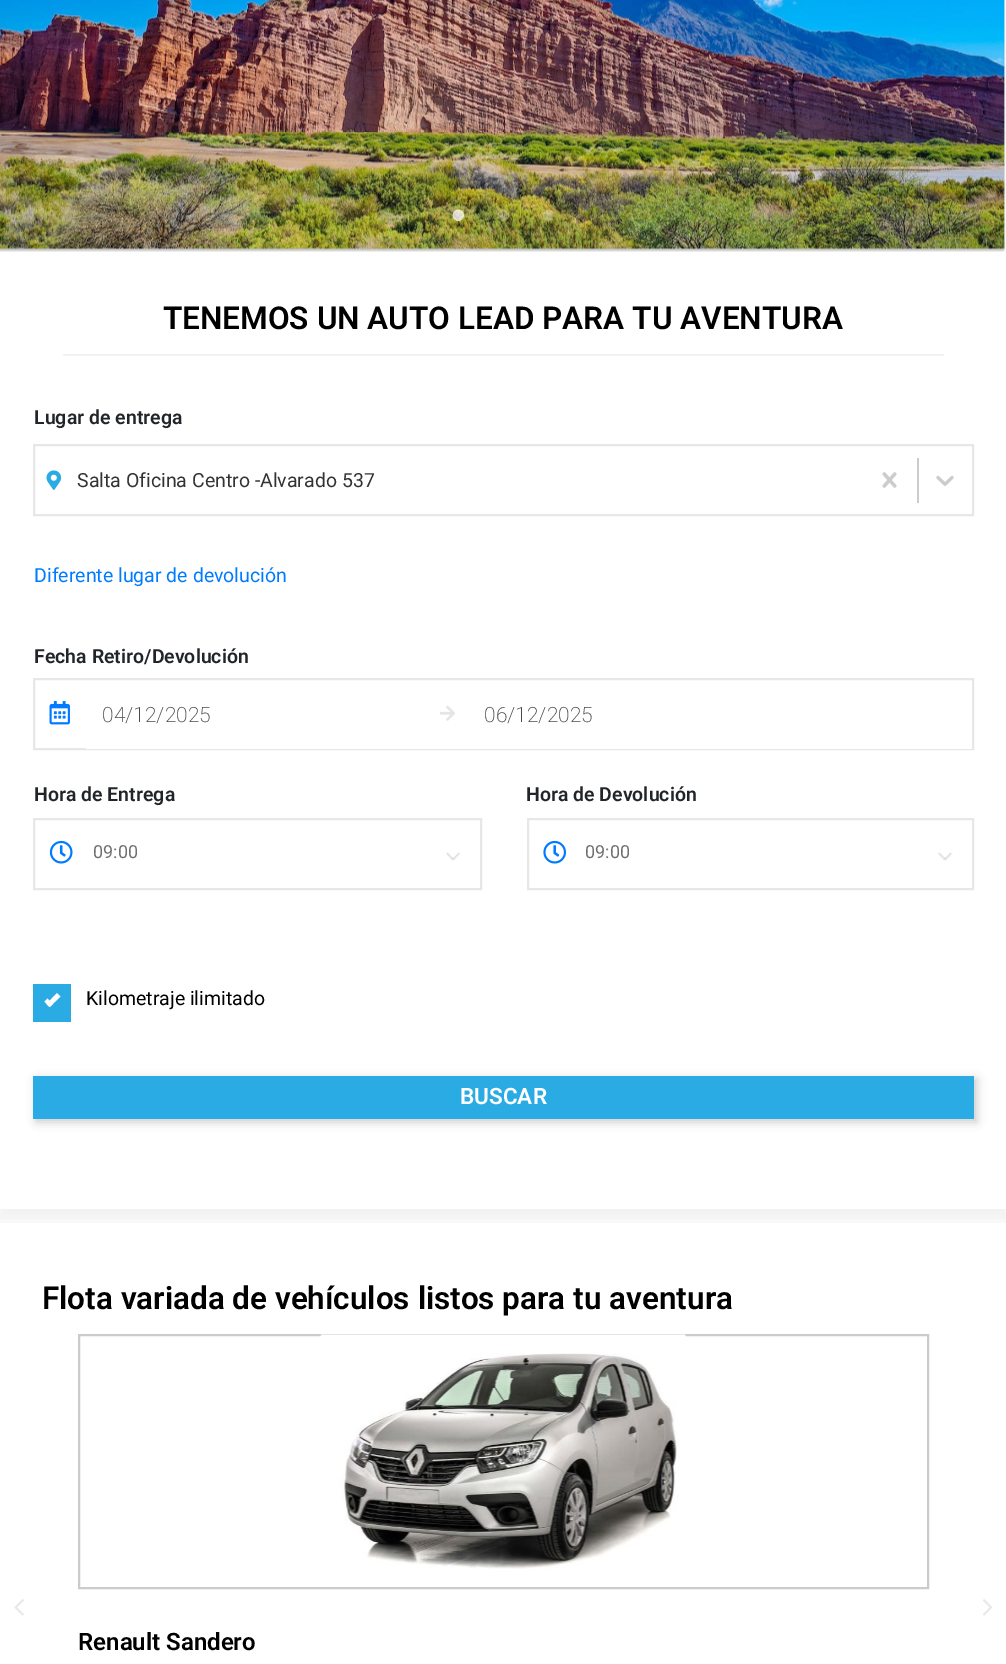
%!PS
<< /PageSize [1006 1664] /PageUsesTransparency true >> setpagedevice
/alpha { dup .setfillconstantalpha .setstrokeconstantalpha } def
/roundrect { 5 dict begin { /r /h /w /y /x } { exch def } forall
  x r add y moveto x w add y 2 copy h add r arct x w add y h add x 1 index r arct
  x y h add x y r arct x y 2 copy exch w add exch r arct closepath end } def
/shadow { 12 dict begin { /a /b /q /h /w /y /x } { exch def } forall gsave /was 0 def
  9 -2 -9 { dup b mul 4 div /e exch def 1 sub .425 mul 2.718 exch exp 1 add a .99 .min exch div /now exch def
    1 1 now sub 1 was sub div sub alpha /was now def
    w h .min e 2 mul add 0 gt { x e sub y e sub w e 2 mul add h e 2 mul add
      q e add b .6 mul add w h .min 2 div e add .min 0 .max roundrect fill } if } for grestore end } def
/picture { 5 dict begin { /h /w /y /x /name } { exch def } forall
  gsave x y translate w h scale
  w h 8 [w 0 0 h 0 0] name (r) file false 3 colorimage grestore end } def
0 .pushpdf14devicefilter
0 1664 translate 1 -1 scale
4 setmiterlimit
1 setgray
0 0 1006 1664 rectfill
(img1.rgb) 0 0 1006 252 picture
(img2.rgb) 452 209 12 12 picture
(img3.rgb) 497 209 12 12 picture
(img4.rgb) 542 209 12 12 picture
0.949 setgray
63 354 881 2 rectfill
/Roboto-SemiBold [31.5 0 0 -31.5 0 0] selectfont
0 setgray
163 329 moveto (TENEMOS UN AUTO LEAD PARA TU AVENTURA) show
gsave
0 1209 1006 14 rectclip
-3 368 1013 853 0 8 0.05 shadow
grestore
/Roboto-SemiBold [19.5 0 0 -19.5 0 0] selectfont
0.129 0.145 0.161 setrgbcolor
34 424 moveto (Lugar de entrega) show
0.906 setgray
2 setlinewidth
34 445 939 70 rectstroke
(img5.rgb) 46 470 16 20 picture
/Roboto-Regular [19.5 0 0 -19.5 0 0] selectfont
0.2 setgray
77 487 moveto (Salta Oficina Centro -Alvarado 537) show
(img6.rgb) 882 472 15 16 picture
0.8 setgray
917 458 2 45 rectfill
(img7.rgb) 936 475 18 11 picture
0 0.482 1 setrgbcolor
34 582 moveto (Diferente lugar de devolución) show
/Roboto-SemiBold [19.5 0 0 -19.5 0 0] selectfont
0.129 0.145 0.161 setrgbcolor
34 663 moveto (Fecha Retiro/Devolución) show
0.906 setgray
34 679 939 70 rectstroke
(img8.rgb) 49 701 21 24 picture
1 setgray
86 748 886 1 rectfill
/Roboto-ExtraLight [21 0 0 -21 0 0] selectfont
0.282 setgray
102 722 moveto (04/12/2025) show
(img9.rgb) 440 705 15 16 picture
484 722 moveto (06/12/2025) show
/Roboto-SemiBold [19.5 0 0 -19.5 0 0] selectfont
0.129 0.145 0.161 setrgbcolor
34 801 moveto (Hora de Entrega) show
0.906 setgray
34 819 447 70 rectstroke
(img10.rgb) 49 840 24 24 picture
(img11.rgb) 446 852 15 9 picture
/Roboto-Regular [18 0 0 -18 0 0] selectfont
0.435 setgray
93 858 moveto (09:00) show
/Roboto-SemiBold [19.5 0 0 -19.5 0 0] selectfont
0.129 0.145 0.161 setrgbcolor
526 801 moveto (Hora de Devolución) show
0.906 setgray
528 819 445 70 rectstroke
(img12.rgb) 543 840 23 24 picture
(img13.rgb) 937 852 16 9 picture
/Roboto-Regular [18 0 0 -18 0 0] selectfont
0.435 setgray
585 858 moveto (09:00) show
0.169 0.671 0.89 setrgbcolor
33 984 38 38 rectfill
1 setgray
newpath 57 993 moveto 60.5 996.5 lineto 49.5 1007 lineto 46.5 1004 lineto closepath fill
newpath 47.5 998.5 moveto 53 1004 lineto 49.5 1007 lineto 44.5 1001.5 lineto closepath fill
/Roboto-Regular [19.5 0 0 -19.5 0 0] selectfont
0 setgray
86 1005 moveto (Kilometraje ilimitado) show
36 1079 941 43 0 4.5 0.2 shadow
0.169 0.671 0.89 setrgbcolor
33 1076 941 43 rectfill
/Roboto-SemiBold [22.5 0 0 -22.5 0 0] selectfont
1 setgray
460 1104 moveto (BUSCAR) show
/Roboto-SemiBold [31.5 0 0 -31.5 0 0] selectfont
0 setgray
42 1309 moveto (Flota variada de vehículos listos para tu aventura) show
(img14.rgb) 14 1599 10 17 picture
(img15.rgb) 983 1599 10 17 picture
0.796 setgray
79 1335 849 253 rectstroke
(img16.rgb) 320 1334 366 235 picture
/Roboto-SemiBold [24 0 0 -24 0 0] selectfont
0 setgray
78 1650 moveto (Renault Sandero) show
.poppdf14devicefilter showpage
